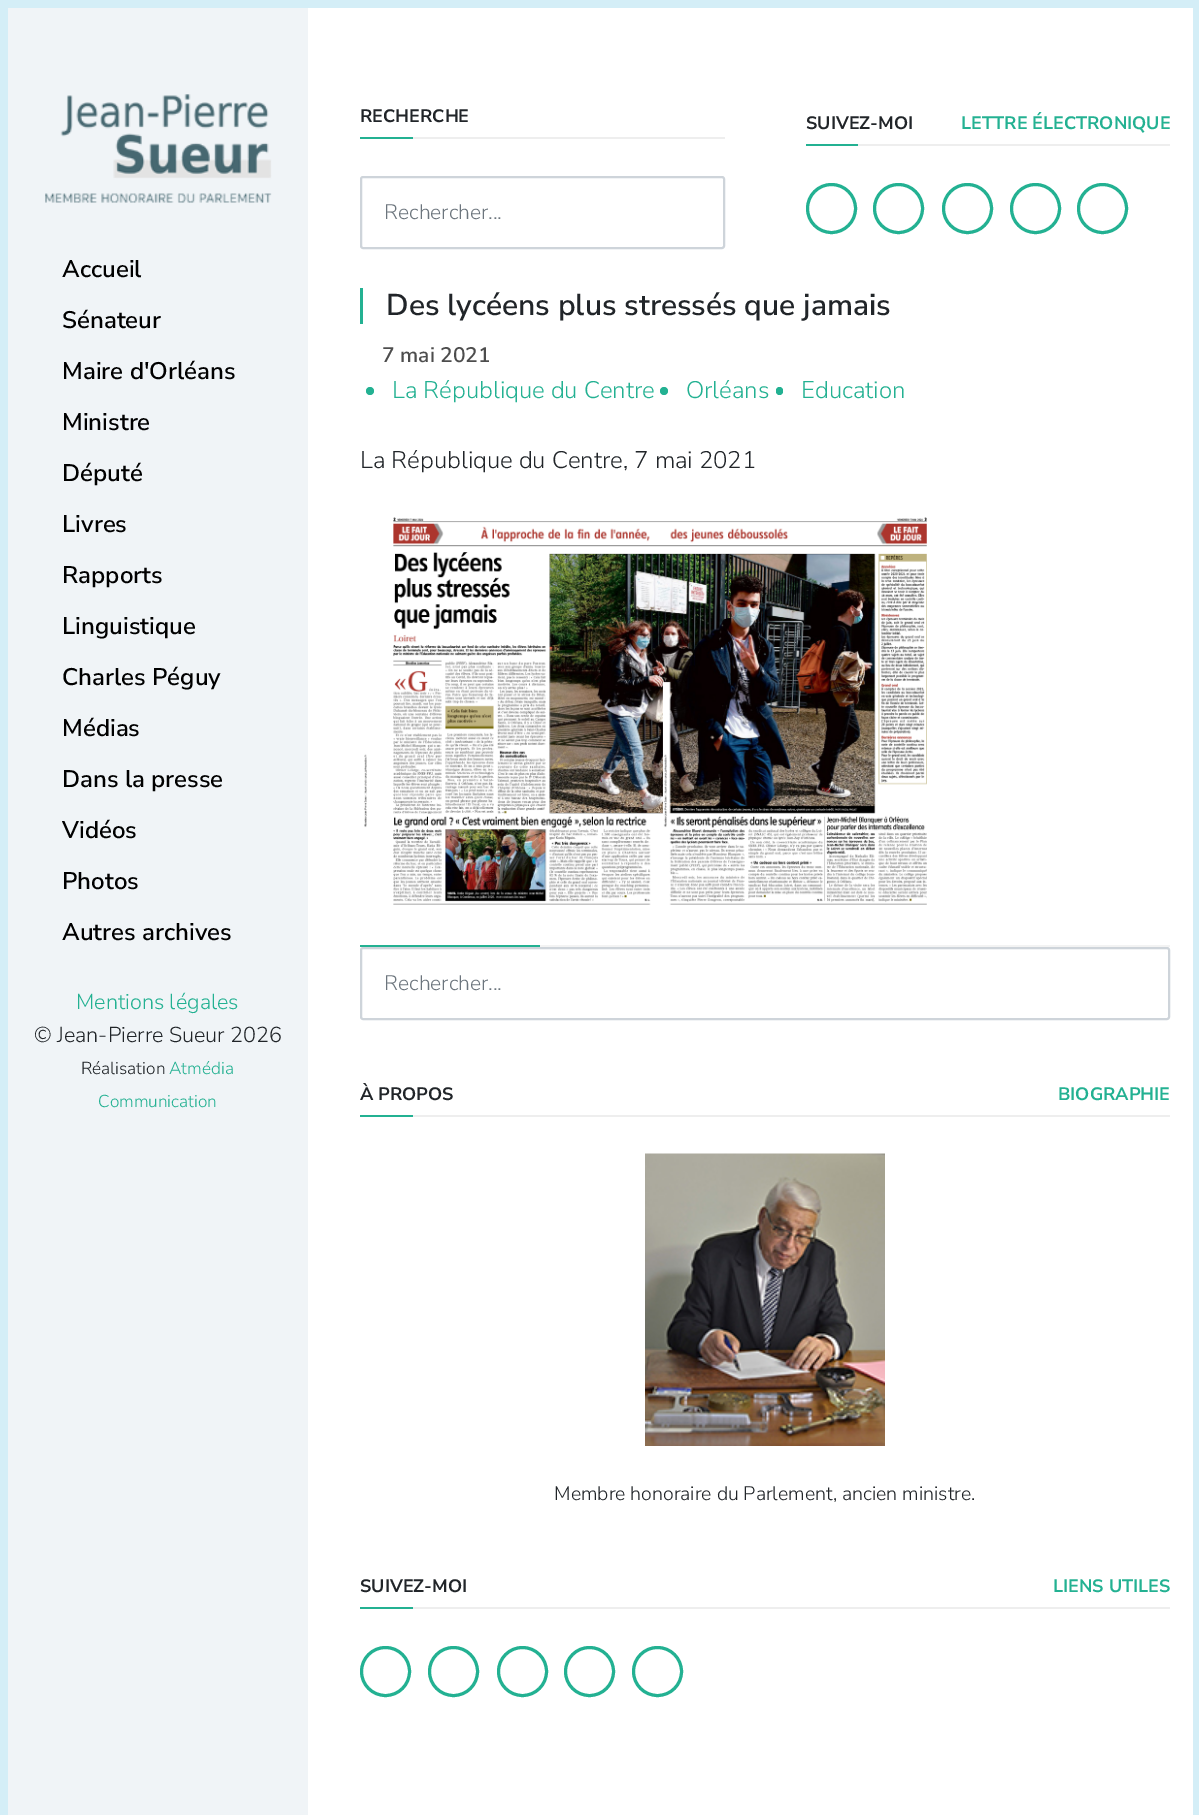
%!PS
<< /PageSize [1199 1815] >> setpagedevice
/roundrect { 5 dict begin { /r /h /w /y /x } { exch def } forall
  x r add y moveto x w add y 2 copy h add r arct x w add y h add x 1 index r arct
  x y h add x y r arct x y 2 copy exch w add exch r arct closepath end } def
/picture { 5 dict begin { /h /w /y /x /name } { exch def } forall
  gsave x y translate w h scale
  w h 8 [w 0 0 h 0 0] name (r) file false 3 colorimage grestore end } def
0 1815 translate 1 -1 scale
4 setmiterlimit
0.831 0.933 0.969 setrgbcolor
0 0 1199 1815 rectfill
0.941 0.957 0.969 setrgbcolor
8 8 300 1807 rectfill
(img1.rgb) 45 94 227 109 picture
/NunitoSans-SemiBold [24 0 0 -24 0 0] selectfont
0 setgray
62 277 moveto (Accueil) show
62 328 moveto (Sénateur) show
62 379 moveto (Maire d'Orléans) show
62 430 moveto (Ministre) show
62 481 moveto (Député) show
62 532 moveto (Livres) show
62 583 moveto (Rapports) show
62 634 moveto (Linguistique) show
62 685 moveto (Charles Péguy) show
62 736 moveto (Médias) show
62 787 moveto (Dans la presse) show
62 838 moveto (Vidéos) show
62 889 moveto (Photos) show
62 940 moveto (Autres archives) show
/NunitoSans-Light [21.6 0 0 -21.6 0 0] selectfont
0.137 0.694 0.573 setrgbcolor
76 1009 moveto (Mentions légales) show
0.129 0.145 0.161 setrgbcolor
34 1042 moveto (© Jean-Pierre Sueur 2026) show
/NunitoSans-Light [17.25 0 0 -17.25 0 0] selectfont
81 1074 moveto (Réalisation) show
0.137 0.694 0.573 setrgbcolor
169 1074 moveto (Atmédia) show
98 1107 moveto (Communication) show
1 setgray
308 8 885 1807 rectfill
/NunitoSans-Bold [18 0 0 -18 0 0] selectfont
0.129 0.145 0.161 setrgbcolor
360 122 moveto (RECHERCHE) show
0.137 0.694 0.573 setrgbcolor
360 137 53 2 rectfill
0.933 setgray
413 137 312 2 rectfill
0.808 0.831 0.855 setrgbcolor
2 setlinewidth
361 177 363 71 2 roundrect stroke
/NunitoSans-Light [21 0 0 -21 0 0] selectfont
0.424 0.459 0.49 setrgbcolor
384 219 moveto (Rechercher...) show
/NunitoSans-Bold [18 0 0 -18 0 0] selectfont
0.129 0.145 0.161 setrgbcolor
806 129 moveto (SUIVEZ-MOI) show
0.137 0.694 0.573 setrgbcolor
961 129 moveto (LETTRE ÉLECTRONIQUE) show
806 144 52 2 rectfill
0.933 setgray
858 144 312 2 rectfill
0.137 0.694 0.573 setrgbcolor
3 setlinewidth
newpath 831.5 208.5 24 0 360 arc closepath stroke
newpath 898.5 208.5 24 0 360 arc closepath stroke
newpath 967.5 208.5 24 0 360 arc closepath stroke
newpath 1035.5 208.5 24 0 360 arc closepath stroke
newpath 1102.5 208.5 24 0 360 arc closepath stroke
360 288 3 36 rectfill
/NunitoSans-SemiBold [30 0 0 -30 0 0] selectfont
0.129 0.145 0.161 setrgbcolor
386 315 moveto (Des lycéens plus stressés que jamais) show
/NunitoSans-SemiBold [21 0 0 -21 0 0] selectfont
0.302 setgray
382 362 moveto (7 mai 2021) show
0.137 0.694 0.573 setrgbcolor
newpath 370 391 4 0 360 arc closepath fill
/NunitoSans-Light [24 0 0 -24 0 0] selectfont
392 398 moveto (La République du Centre) show
newpath 664 391 4 0 360 arc closepath fill
686 398 moveto (Orléans) show
776 387 7 8 3.5 roundrect fill
801 398 moveto (Education) show
0.953 setgray
540 945 630 2 rectfill
0.129 0.145 0.161 setrgbcolor
360 468 moveto (La République du Centre, 7 mai 2021) show
(img2.rgb) 364 517 296 388 picture
(img3.rgb) 660 517 267 388 picture
0.137 0.694 0.573 setrgbcolor
360 945 180 2 rectfill
0.808 0.831 0.855 setrgbcolor
2 setlinewidth
361 948 808 71 2 roundrect stroke
/NunitoSans-Light [21 0 0 -21 0 0] selectfont
0.424 0.459 0.49 setrgbcolor
384 990 moveto (Rechercher...) show
/NunitoSans-Bold [18 0 0 -18 0 0] selectfont
0.129 0.145 0.161 setrgbcolor
360 1100 moveto (À PROPOS) show
0.137 0.694 0.573 setrgbcolor
1058 1100 moveto (BIOGRAPHIE) show
360 1115 53 2 rectfill
0.933 setgray
413 1115 757 2 rectfill
(img4.rgb) 645 1153 240 293 picture
/NunitoSans-Light [19.5 0 0 -19.5 0 0] selectfont
0.129 0.145 0.161 setrgbcolor
554 1500 moveto (Membre honoraire du Parlement, ancien ministre.) show
/NunitoSans-Bold [18 0 0 -18 0 0] selectfont
360 1592 moveto (SUIVEZ-MOI) show
0.137 0.694 0.573 setrgbcolor
1053 1592 moveto (LIENS UTILES) show
360 1607 53 2 rectfill
0.933 setgray
413 1607 757 2 rectfill
0.137 0.694 0.573 setrgbcolor
3 setlinewidth
newpath 385.5 1671.5 24 0 360 arc closepath stroke
newpath 453.5 1671.5 24 0 360 arc closepath stroke
newpath 522.5 1671.5 24 0 360 arc closepath stroke
newpath 589.5 1671.5 24 0 360 arc closepath stroke
newpath 657.5 1671.5 24 0 360 arc closepath stroke
showpage
